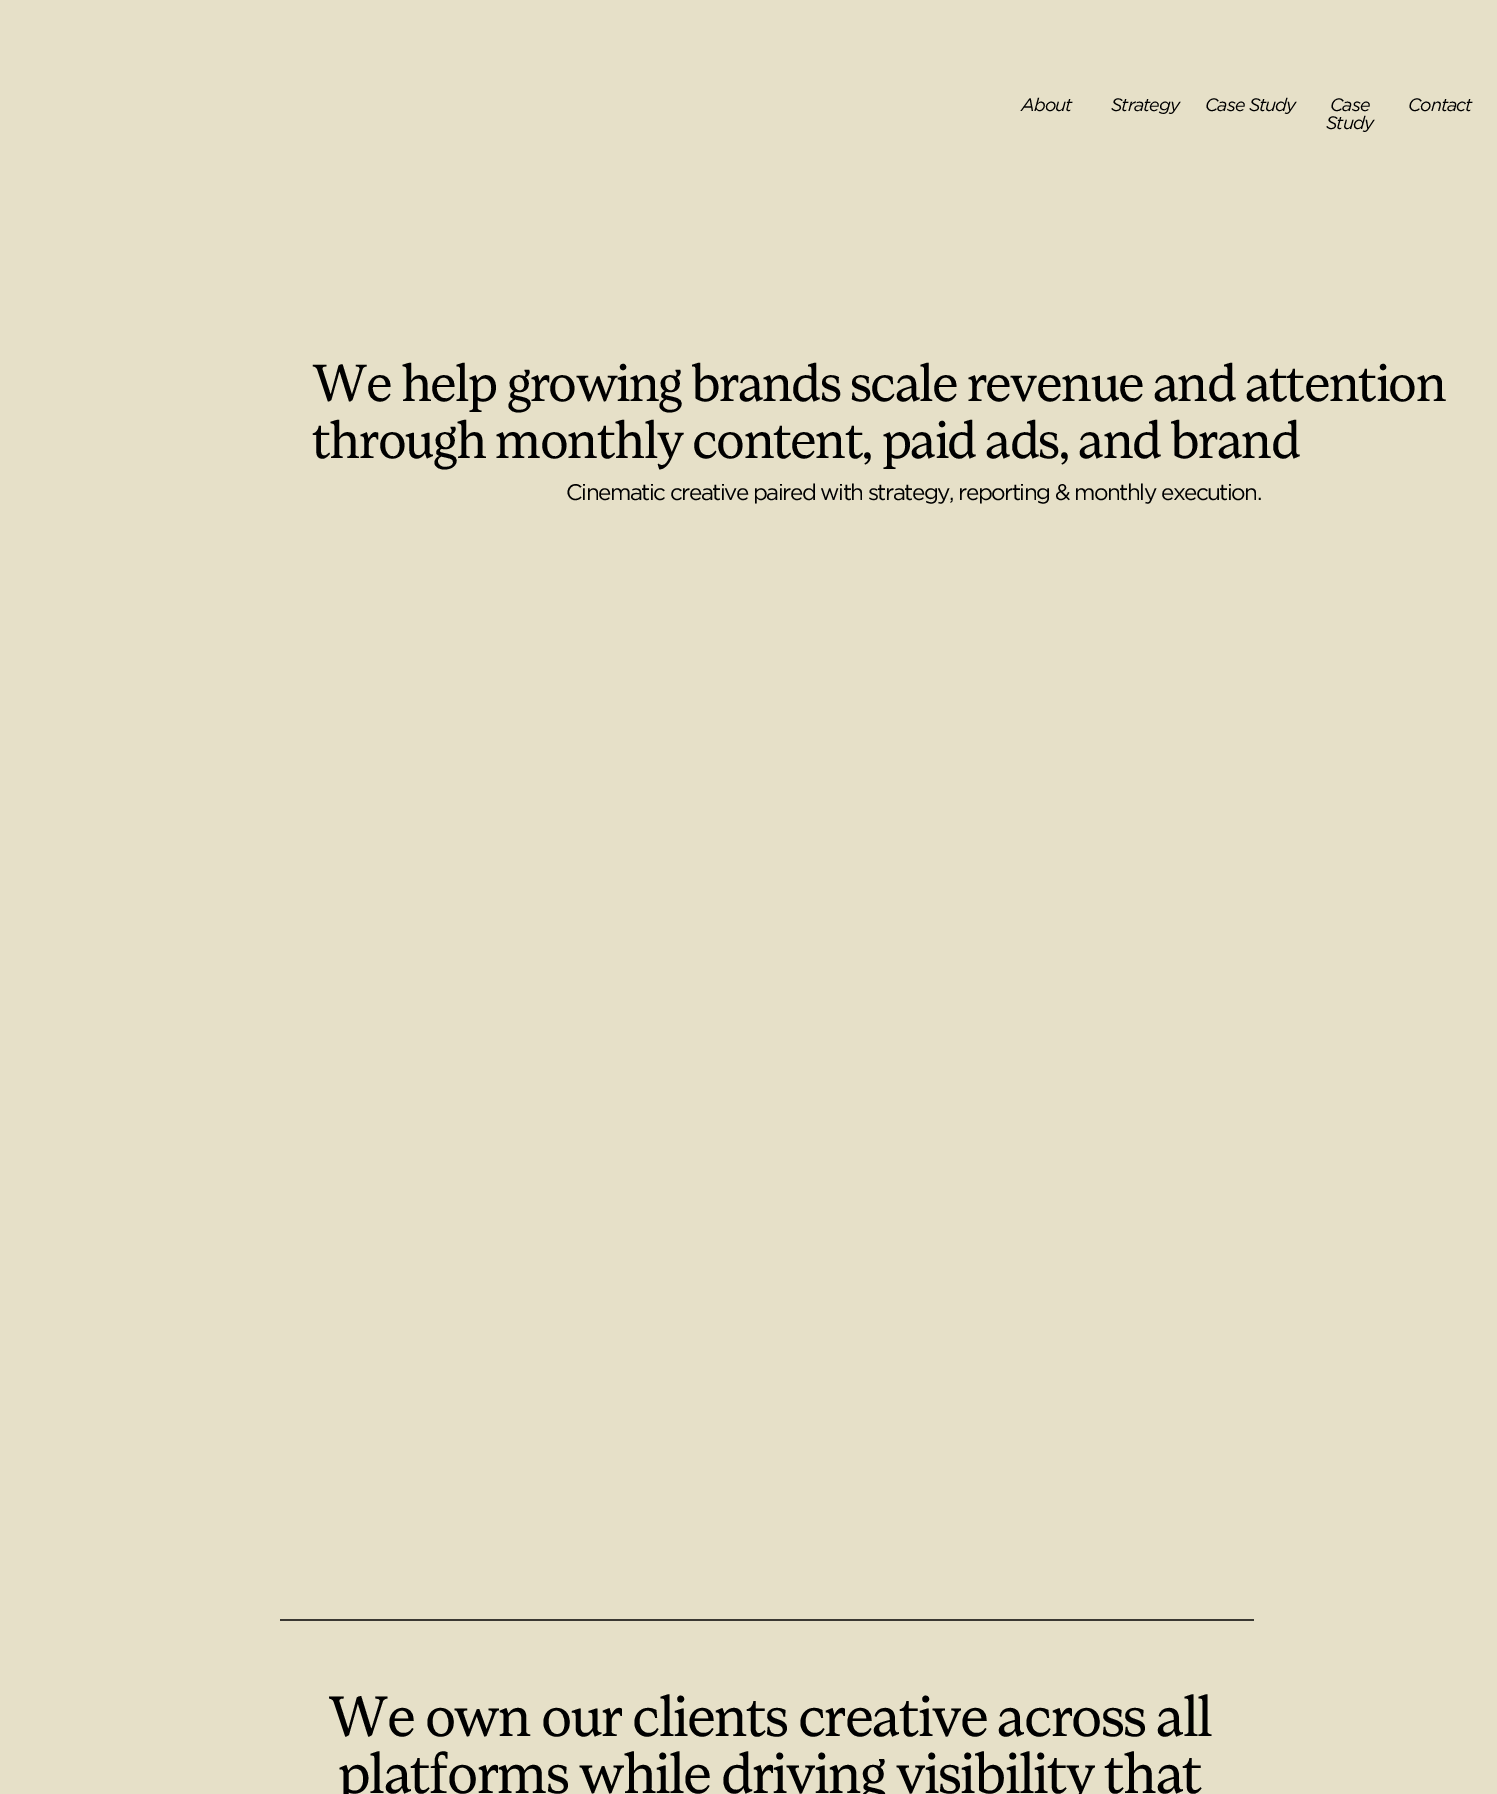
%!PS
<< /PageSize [1497 1794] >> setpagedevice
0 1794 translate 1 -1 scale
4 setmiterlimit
0.902 0.878 0.784 setrgbcolor
0 0 1497 1794 rectfill
/Gotham-Italic [18 0 0 -18 0 0] selectfont
0 setgray
1021 111 moveto -1 0 (About) ashow
1111 111 moveto -1 0 (Strategy) ashow
1205 111 moveto -1 0 (Case Study) ashow
1330 111 moveto -1 0 (Case) ashow
1326 129 moveto -1 0 (Study) ashow
1408 111 moveto -1 0 (Contact) ashow
/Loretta-Regular [52.6 0 0 -52.6 0 0] selectfont
312 401 moveto -1.5 0 (We help growing brands scale revenue and attention) ashow
312 458 moveto -1.5 0 (through monthly content, paid ads, and brand) ashow
/Gotham-Regular [22.5 0 0 -22.5 0 0] selectfont
566 500 moveto -1.5 0 (Cinematic creative paired with strategy, reporting & monthly execution.) ashow
0.227 0.22 0.196 setrgbcolor
280 1619 974 2 rectfill
/Loretta-Regular [57.1 0 0 -57.1 0 0] selectfont
0 setgray
328 1736 moveto -1.5 0 (We own our clients creative across all) ashow
338 1793 moveto -1.5 0 (platforms while driving visibility that) ashow
showpage
